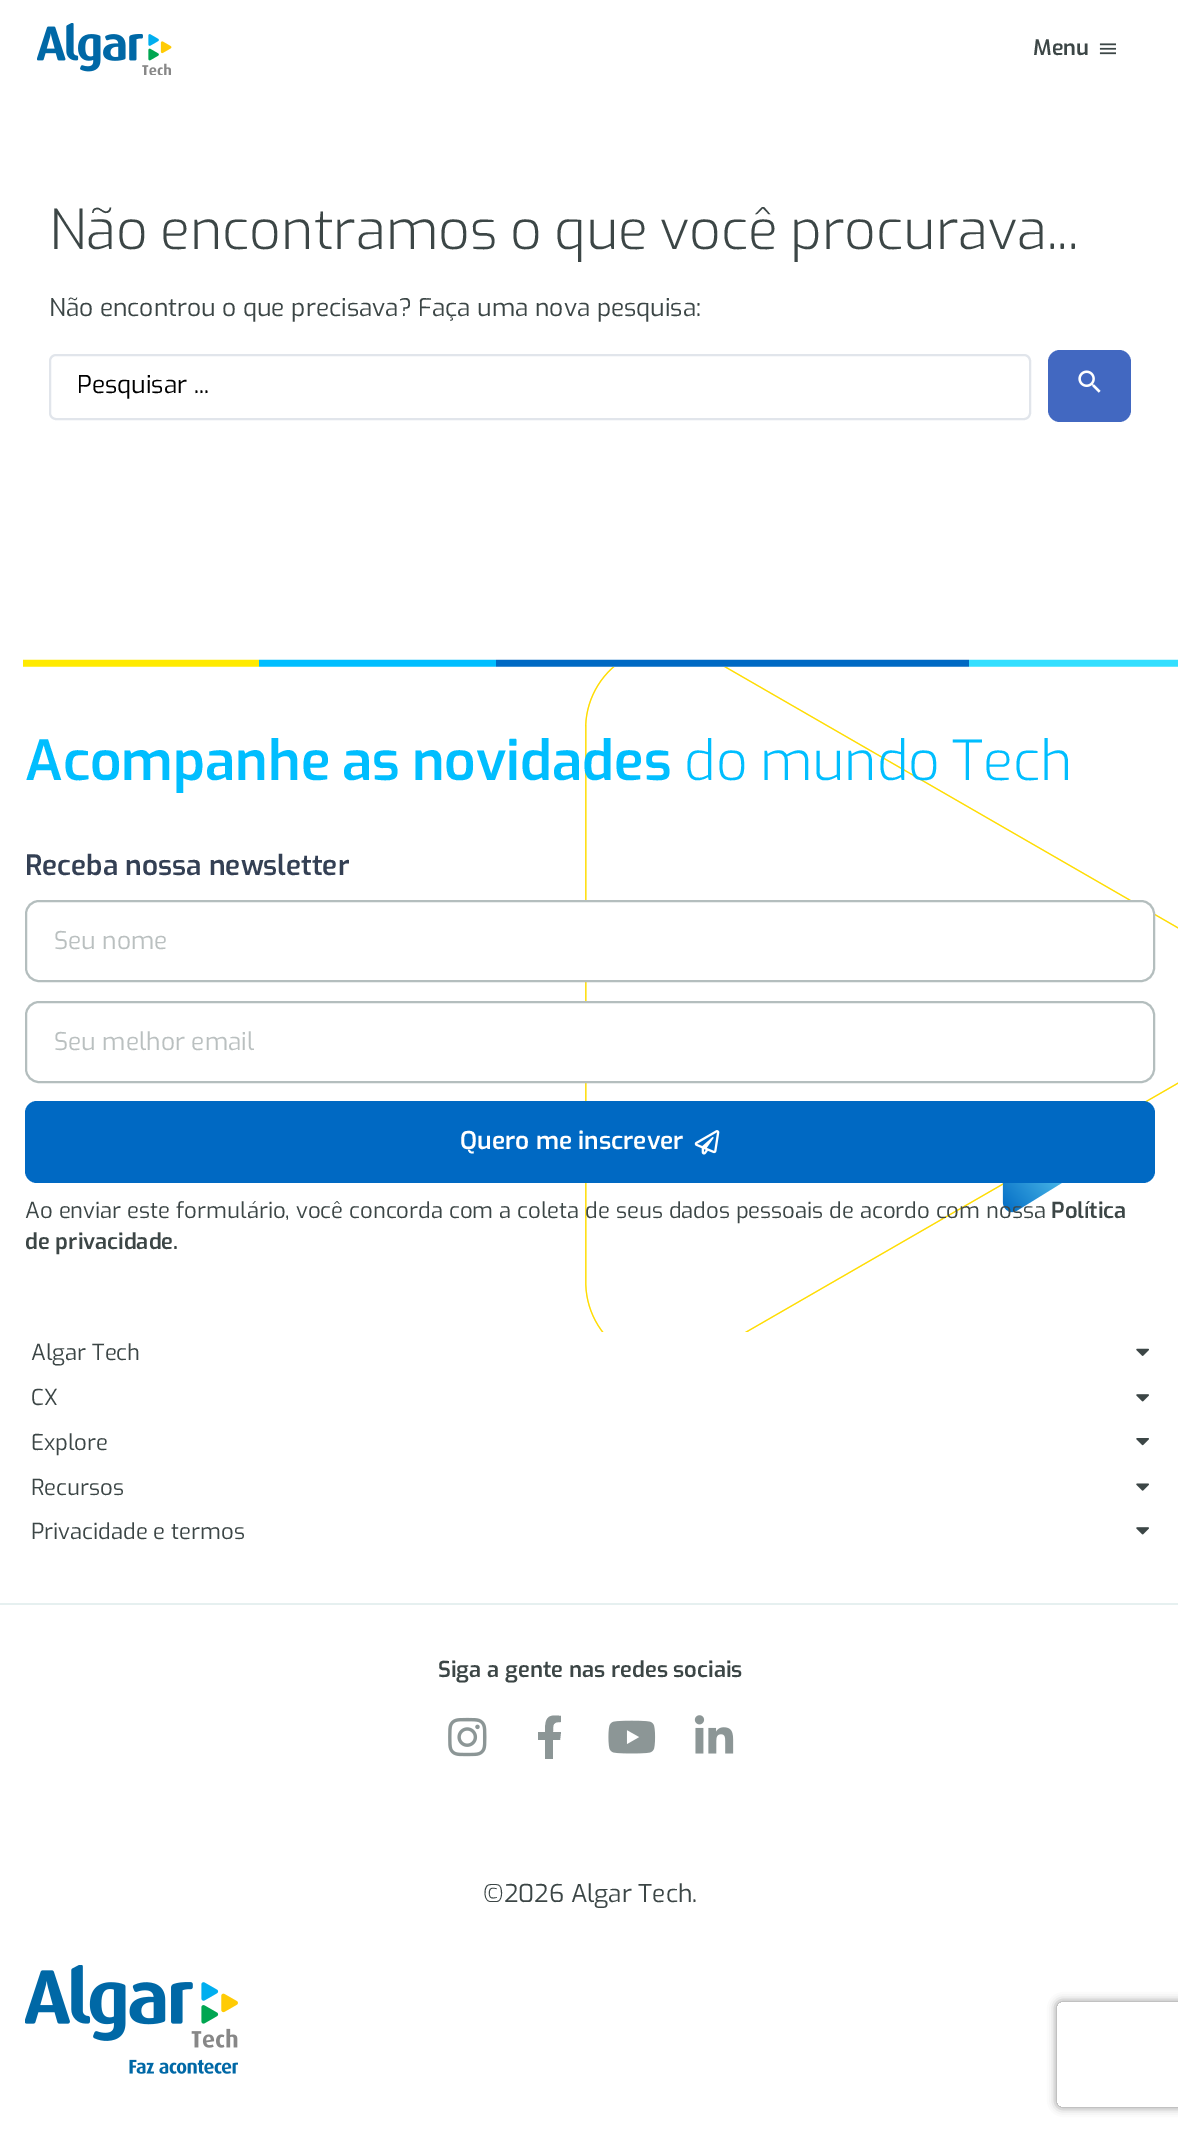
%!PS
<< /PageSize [1178 2131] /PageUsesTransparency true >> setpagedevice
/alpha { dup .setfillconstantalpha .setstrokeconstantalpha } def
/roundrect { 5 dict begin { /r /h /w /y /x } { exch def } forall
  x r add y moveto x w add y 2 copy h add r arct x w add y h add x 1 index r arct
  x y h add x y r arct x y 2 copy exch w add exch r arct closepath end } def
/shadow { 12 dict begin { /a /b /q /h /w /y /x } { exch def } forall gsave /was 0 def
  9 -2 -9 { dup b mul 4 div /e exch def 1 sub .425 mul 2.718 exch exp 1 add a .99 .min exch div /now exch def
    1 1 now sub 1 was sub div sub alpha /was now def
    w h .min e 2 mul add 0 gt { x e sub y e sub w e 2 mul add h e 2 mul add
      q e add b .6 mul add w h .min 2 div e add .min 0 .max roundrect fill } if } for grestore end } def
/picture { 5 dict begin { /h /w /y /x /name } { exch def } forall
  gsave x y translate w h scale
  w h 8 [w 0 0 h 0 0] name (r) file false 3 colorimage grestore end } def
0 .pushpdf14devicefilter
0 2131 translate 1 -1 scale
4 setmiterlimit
1 setgray
0 0 1178 2131 rectfill
(img1.rgb) 37 23 135 52 picture
/Exo-SemiBold [21.5 0 0 -21.5 0 0] selectfont
0.235 0.275 0.275 setrgbcolor
1033 55 moveto (Menu) show
(img2.rgb) 1099 43 17 12 picture
/Exo-Light [55.1 0 0 -55.1 0 0] selectfont
49 249 moveto -2.75 0 32 (Não encontramos o que você procurava...) widthshow
/Exo-Regular [24.5 0 0 -24.5 0 0] selectfont
49 316 moveto (Não encontrou o que precisava? Faça uma nova pesquisa:) show
0.882 0.898 0.922 setrgbcolor
2 setlinewidth
50 355 980 64 6 roundrect stroke
0 setgray
77 393 moveto (Pesquisar ...) show
0.259 0.408 0.757 setrgbcolor
1048 350 83 72 12 roundrect fill
(img3.rgb) 1078 370 23 23 picture
(img4.rgb) 585 667 593 665 picture
(img5.rgb) 23 659 1155 8 picture
/Exo-SemiBold [55.1 0 0 -55.1 0 0] selectfont
0 0.745 1 setrgbcolor
25 780 moveto -2.75 0 32 (Acompanhe as novidades) widthshow
/Exo-Light [55.1 0 0 -55.1 0 0] selectfont
684 780 moveto -2.75 0 32 (do mundo Tech) widthshow
/Exo-SemiBold [28 0 0 -28 0 0] selectfont
0.204 0.251 0.329 setrgbcolor
25 875 moveto (Receba nossa newsletter) show
1 setgray
26 901 1128 80 13 roundrect gsave fill grestore
0.706 0.745 0.745 setrgbcolor
stroke
/Exo-Regular [24.5 0 0 -24.5 0 0] selectfont
0.729 0.753 0.753 setrgbcolor
54 949 moveto (Seu nome) show
1 setgray
26 1002 1128 80 13 roundrect gsave fill grestore
0.706 0.745 0.745 setrgbcolor
stroke
0.729 0.753 0.753 setrgbcolor
54 1050 moveto (Seu melhor email) show
0 0.412 0.765 setrgbcolor
25 1101 1130 82 12 roundrect fill
/Exo-SemiBold [24.5 0 0 -24.5 0 0] selectfont
1 setgray
460 1149 moveto (Quero me inscrever) show
(img6.rgb) 694 1130 26 25 picture
/Exo-Regular [22.05 0 0 -22.05 0 0] selectfont
0.235 0.275 0.275 setrgbcolor
25 1218 moveto (Ao enviar este formulário, você concorda com a coleta de seus dados pessoais de acordo com nossa) show
/Exo-SemiBold [22.05 0 0 -22.05 0 0] selectfont
1051 1218 moveto (Política) show
25 1249 moveto (de privacidade.) show
/Exo-Regular [22.05 0 0 -22.05 0 0] selectfont
31 1360 moveto (Algar Tech) show
(img7.rgb) 1136 1348 13 8 picture
31 1405 moveto (CX) show
(img8.rgb) 1136 1394 13 8 picture
31 1450 moveto (Explore) show
(img9.rgb) 1136 1438 13 8 picture
31 1495 moveto (Recursos) show
(img10.rgb) 1136 1483 13 8 picture
31 1539 moveto (Privacidade e termos) show
(img8.rgb) 1136 1527 13 8 picture
0.902 0.941 0.941 setrgbcolor
0 1603 1178 2 rectfill
/Exo-SemiBold [22.05 0 0 -22.05 0 0] selectfont
0.235 0.275 0.275 setrgbcolor
438 1677 moveto (Siga a gente nas redes sociais) show
(img11.rgb) 448 1717 39 40 picture
0.549 0.588 0.588 setrgbcolor
newpath 560 1740 moveto 553 1740 lineto 553 1759 lineto 545 1759 lineto 545 1740 lineto 538 1740 lineto 538 1732 lineto 545 1732 lineto 545 1718 547 1714 561 1716 curveto 561 1722 lineto 553 1722 553 1724 553 1732 curveto 561 1732 lineto closepath fill
(img12.rgb) 608 1720 48 34 picture
(img13.rgb) 694 1715 40 39 picture
/Exo-Regular [24.5 0 0 -24.5 0 0] selectfont
0.235 0.275 0.275 setrgbcolor
483 1902 moveto (©2026 Algar Tech.) show
(img14.rgb) 25 1965 213 109 picture
gsave
newpath 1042 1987 moveto 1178 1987 lineto 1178 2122 lineto 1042 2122 lineto closepath 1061 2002 moveto 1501 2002 lineto 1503 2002 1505 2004 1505 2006 curveto 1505 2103 lineto 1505 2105 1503 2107 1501 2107 curveto 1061 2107 lineto 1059 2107 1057 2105 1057 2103 curveto 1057 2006 lineto 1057 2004 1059 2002 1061 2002 curveto closepath eoclip newpath
0.502 setgray
1057 2002 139 105 4 4.5 1 shadow
grestore
.poppdf14devicefilter showpage
